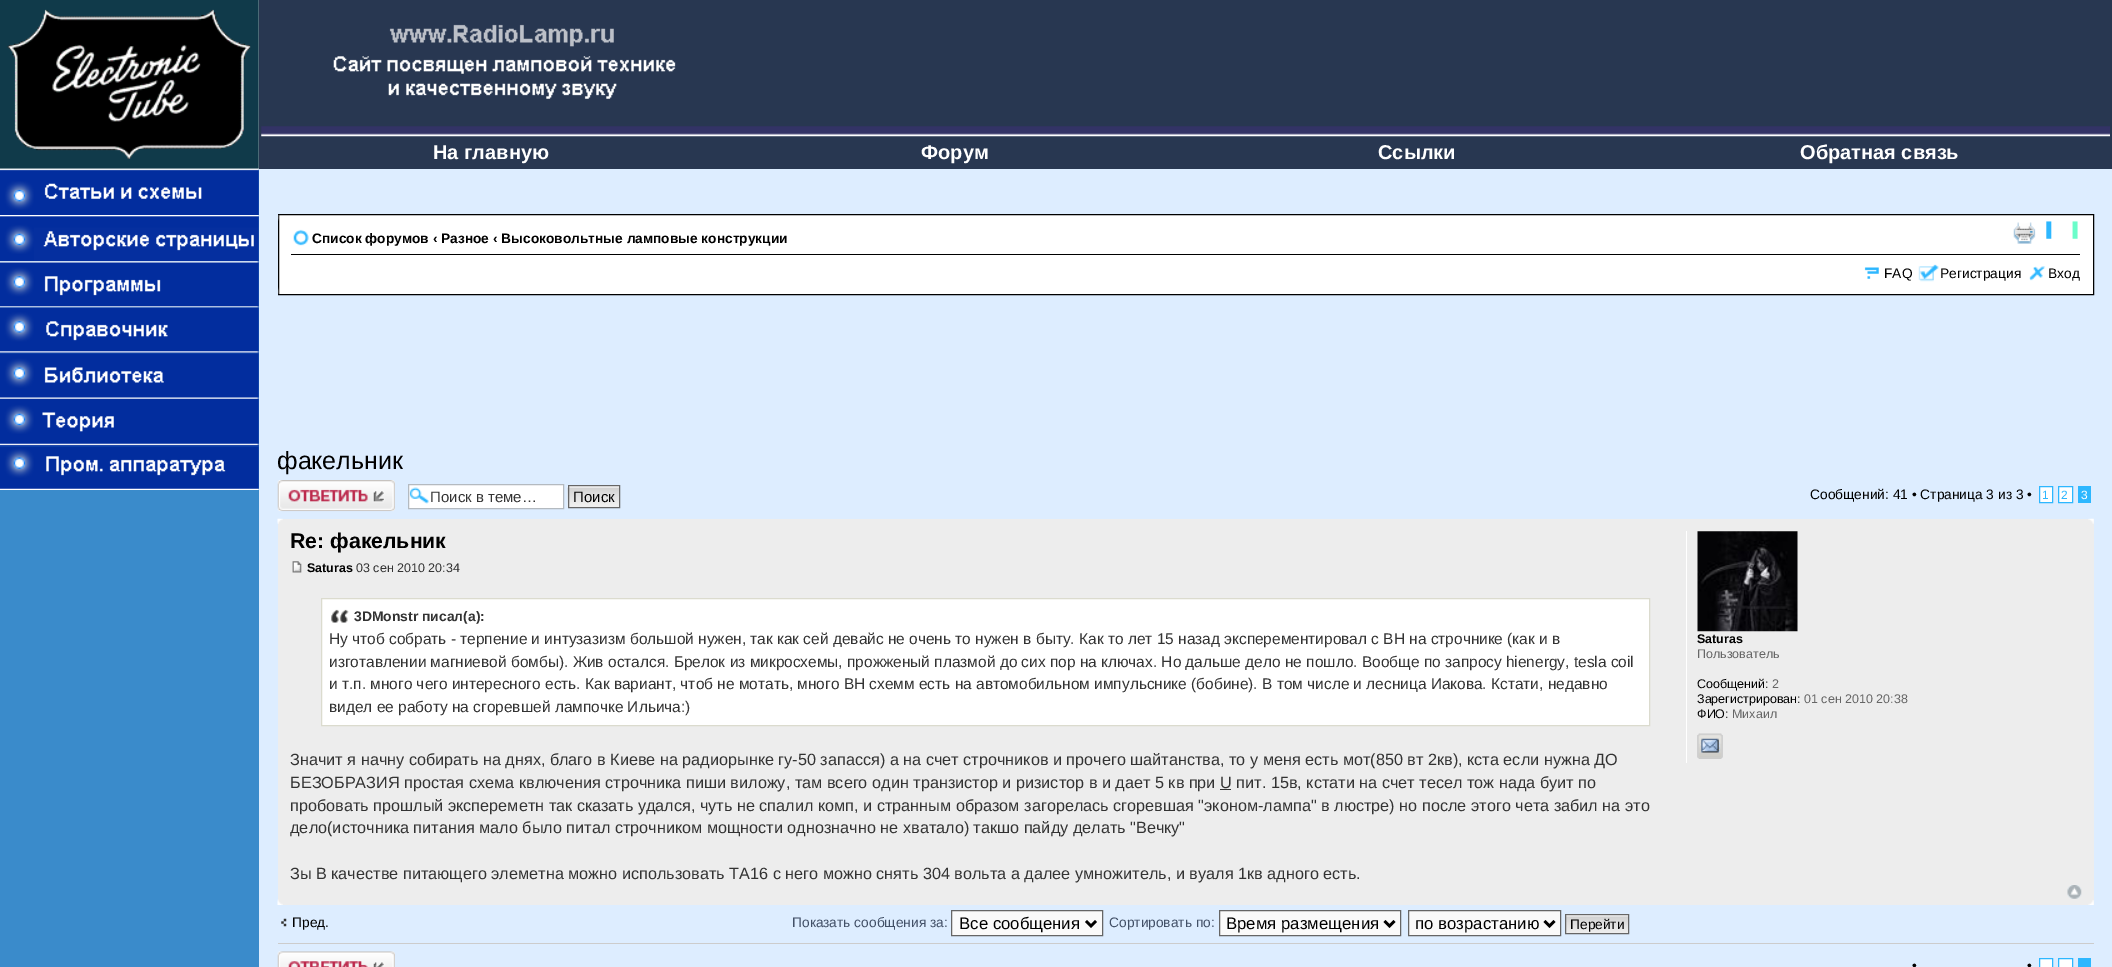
%!PS
<< /PageSize [2112 967] >> setpagedevice
/picture { 5 dict begin { /h /w /y /x /name } { exch def } forall
  gsave x y translate w h scale
  w h 8 [w 0 0 h 0 0] name (r) file false 3 colorimage grestore end } def
0 967 translate 1 -1 scale
4 setmiterlimit
1 setgray
0 0 2112 967 rectfill
(img1.rgb) 0 0 259 169 picture
0.157 0.216 0.318 setrgbcolor
259 0 1853 169 rectfill
(img2.rgb) 333 24 343 75 picture
(img3.rgb) 261 126 1849 11 picture
/LiberationSans-Bold [20 0 0 -20 0 0] selectfont
1 setgray
433 159 moveto (На главную) show
921 159 moveto (Форум) show
1378 159 moveto (Ссылки) show
1800 159 moveto (Обратная связь) show
0.227 0.545 0.796 setrgbcolor
0 169 259 798 rectfill
(img4.rgb) 0 168 259 47 picture
(img5.rgb) 0 215 259 47 picture
(img6.rgb) 0 261 259 47 picture
(img7.rgb) 0 307 259 47 picture
(img8.rgb) 0 353 259 47 picture
(img9.rgb) 0 400 259 47 picture
(img10.rgb) 0 446 259 44 picture
0.867 0.929 1 setrgbcolor
259 169 1853 798 rectfill
1 setgray
newpath 278.5 214.5 moveto 2093.5 214.5 lineto 2093.5 294.5 lineto 278.5 294.5 lineto closepath gsave fill grestore
0 setgray
stroke
(img11.rgb) 278 215 1 6 picture
291 254 1789 1 rectfill
(img12.rgb) 293 229 16 17 picture
/LiberationSans-Bold [13.75 0 0 -13.75 0 0] selectfont
312 243 moveto (Список форумов ‹ Разное ‹ Высоковольтные ламповые конструкции) show
(img13.rgb) 2013 222 23 22 picture
(img14.rgb) 2046 221 32 18 picture
(img15.rgb) 1864 267 15 12 picture
/LiberationSans-Regular [13.75 0 0 -13.75 0 0] selectfont
1884 278 moveto (FAQ) show
(img16.rgb) 1918 264 21 18 picture
1940 278 moveto (Регистрация) show
(img17.rgb) 2029 266 17 15 picture
2048 278 moveto (Вход) show
(img18.rgb) 278 287 1 7 picture
/LiberationSans-Regular [25 0 0 -25 0 0] selectfont
277 469 moveto (факельник) show
(img19.rgb) 277 480 118 32 picture
1 setgray
409 485 154 23 rectfill
(img20.rgb) 409 487 20 17 picture
0.706 0.729 0.753 setrgbcolor
408.5 484.5 155 24 rectstroke
/LiberationSans-Regular [15 0 0 -15 0 0] selectfont
0.2 setgray
430 502 moveto (Поиск в теме…) show
(img21.rgb) 567 486 52 22 picture
0.4 setgray
568.5 485.5 51 22 rectstroke
0 setgray
573 502 moveto (Поиск) show
/LiberationSans-Regular [13.75 0 0 -13.75 0 0] selectfont
1810 499 moveto (Сообщений: 41 • Страница 3 из 3 •) show
1 setgray
newpath 2039.5 486.5 moveto 2052.5 486.5 lineto 2052.5 502.5 lineto 2039.5 502.5 lineto closepath gsave fill grestore
0.176 0.718 1 setrgbcolor
stroke
/LiberationSans-Regular [12 0 0 -12 0 0] selectfont
2042 499 moveto (1) show
1 setgray
newpath 2058.5 486.5 moveto 2072.5 486.5 lineto 2072.5 502.5 lineto 2058.5 502.5 lineto closepath gsave fill grestore
0.176 0.718 1 setrgbcolor
stroke
2061 499 moveto (2) show
2078 486 13 17 rectfill
1 setgray
2081 499 moveto (3) show
0.929 setgray
278 519 1816 386 rectfill
(img22.rgb) 277 518 6 6 picture
(img23.rgb) 2088 518 6 6 picture
/LiberationSans-Bold [21.25 0 0 -21.25 0 0] selectfont
0 setgray
290 548 moveto (Re: факельник) show
(img24.rgb) 292 561 10 12 picture
/LiberationSans-Bold [12.5 0 0 -12.5 0 0] selectfont
307 572 moveto (Saturas) show
/LiberationSans-Regular [12.5 0 0 -12.5 0 0] selectfont
0.2 setgray
356 572 moveto (03 сен 2010 20:34) show
1 setgray
322 599 1327 126 rectfill
(img25.rgb) 331 609 18 14 picture
0.859 0.859 0.808 setrgbcolor
321.5 598.5 1328 127 rectstroke
/LiberationSans-Bold [13.9 0 0 -13.9 0 0] selectfont
0.2 setgray
354 621 moveto (3DMonstr писал\(а\):) show
/LiberationSans-Regular [15.45 0 0 -15.45 0 0] selectfont
329 644 moveto (Ну чтоб собрать - терпение и интузазизм большой нужен, так как сей девайс не очень то нужен в быту. Как то лет 15 назад эксперементировал с ВН на строчнике \(как и в) show
329 667 moveto (изготавлении магниевой бомбы\). Жив остался. Брелок из микросхемы, прожженый плазмой до сих пор на ключах. Но дальше дело не пошло. Вообще по запросу hienergy, tesla coil) show
329 689 moveto (и т.п. много чего интересного есть. Как вариант, чтоб не мотать, много ВН схемм есть на автомобильном импульснике \(бобине\). В том числе и лесница Иакова. Кстати, недавно) show
329 712 moveto (видел ее работу на сгоревшей лампочке Ильича:\)) show
/LiberationSans-Regular [16.25 0 0 -16.25 0 0] selectfont
290 765 moveto (Значит я начну собирать на днях, благо в Киеве на радиорынке гу-50 запасся\) а на счет строчников и прочего шайтанства, то у меня есть мот\(850 вт 2кв\), кста если нужна ДО) show
290 788 moveto (БЕЗОБРАЗИЯ простая схема квлючения строчника пиши виложу, там всего один транзистор и ризистор в и дает 5 кв при U пит. 15в, кстати на счет тесел тож нада буит по) show
1220 789 11 1 rectfill
290 811 moveto (пробовать прошлый экспереметн так сказать удался, чуть не спалил комп, и странным образом загорелась сгоревшая "эконом-лампа" в люстре\) но после этого чета забил на это) show
290 833 moveto (дело\(источника питания мало было питал строчником мощности однозначно не хватало\) такшо пайду делать "Вечку") show
290 879 moveto (Зы В качестве питающего элеметна можно использовать ТА16 с него можно снять 304 вольта а далее умножитель, и вуаля 1кв адного есть.) show
1 setgray
1686 531 1 232 rectfill
(img26.rgb) 1697 531 101 101 picture
/LiberationSans-Bold [12.5 0 0 -12.5 0 0] selectfont
0 setgray
1697 643 moveto (Saturas) show
/LiberationSans-Regular [12.5 0 0 -12.5 0 0] selectfont
0.4 setgray
1697 658 moveto (Пользователь) show
0 setgray
1697 688 moveto (Сообщений:) show
0.4 setgray
1772 688 moveto (2) show
0 setgray
1697 703 moveto (Зарегистрирован:) show
0.4 setgray
1804 703 moveto (01 сен 2010 20:38) show
0 setgray
1697 718 moveto (ФИО:) show
0.4 setgray
1732 718 moveto (Михаил) show
(img27.rgb) 1697 733 26 26 picture
(img28.rgb) 1697 733 26 26 picture
(img29.rgb) 2067 885 15 14 picture
(img30.rgb) 277 899 6 6 picture
(img31.rgb) 2088 900 6 5 picture
(img32.rgb) 281 918 6 9 picture
/LiberationSans-Regular [13.75 0 0 -13.75 0 0] selectfont
0 setgray
292 927 moveto (Пред.) show
0.259 0.314 0.404 setrgbcolor
792 927 moveto (Показать сообщения за:) show
0.98 setgray
newpath 951.5 910.5 moveto 1102.5 910.5 lineto 1102.5 935.5 lineto 951.5 935.5 lineto closepath gsave fill grestore
0.4 setgray
stroke
0 setgray
2.5 setlinewidth
newpath 1086 921 moveto 1091 926 lineto 1096 921 lineto stroke
/LiberationSans-Regular [16.75 0 0 -16.75 0 0] selectfont
959 929 moveto (Все сообщения) show
/LiberationSans-Regular [13.75 0 0 -13.75 0 0] selectfont
0.259 0.314 0.404 setrgbcolor
1109 927 moveto (Сортировать по:) show
0.98 setgray
newpath 1219.5 910.5 moveto 1400.5 910.5 lineto 1400.5 935.5 lineto 1219.5 935.5 lineto closepath gsave fill grestore
0.4 setgray
1 setlinewidth
stroke
0 setgray
2.5 setlinewidth
newpath 1384.5 921 moveto 1389.5 926 lineto 1394.5 921 lineto stroke
/LiberationSans-Regular [16.75 0 0 -16.75 0 0] selectfont
1226 929 moveto (Время размещения) show
0.98 setgray
newpath 1408.5 910.5 moveto 1560.5 910.5 lineto 1560.5 935.5 lineto 1408.5 935.5 lineto closepath gsave fill grestore
0.4 setgray
1 setlinewidth
stroke
0 setgray
2.5 setlinewidth
newpath 1544.5 921 moveto 1549.5 926 lineto 1554.5 921 lineto stroke
1415 929 moveto (по возрастанию) show
(img33.rgb) 1566 915 62 18 picture
0.4 setgray
1 setlinewidth
1565.5 914.5 63 19 rectstroke
/LiberationSans-Regular [13.75 0 0 -13.75 0 0] selectfont
0 setgray
1570 929 moveto (Перейти) show
0.8 setgray
278 943 1816 1 rectfill
(img34.rgb) 277 951 118 16 picture
0 setgray
1912 970 moveto (•) show
2027 970 moveto (•) show
1 setgray
newpath 2039.5 958.5 moveto 2052.5 958.5 lineto 2052.5 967.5 lineto 2039.5 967.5 lineto closepath gsave fill grestore
0.176 0.718 1 setrgbcolor
stroke
1 setgray
newpath 2058.5 958.5 moveto 2072.5 958.5 lineto 2072.5 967.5 lineto 2058.5 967.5 lineto closepath gsave fill grestore
0.176 0.718 1 setrgbcolor
stroke
2078 958 13 9 rectfill
showpage
